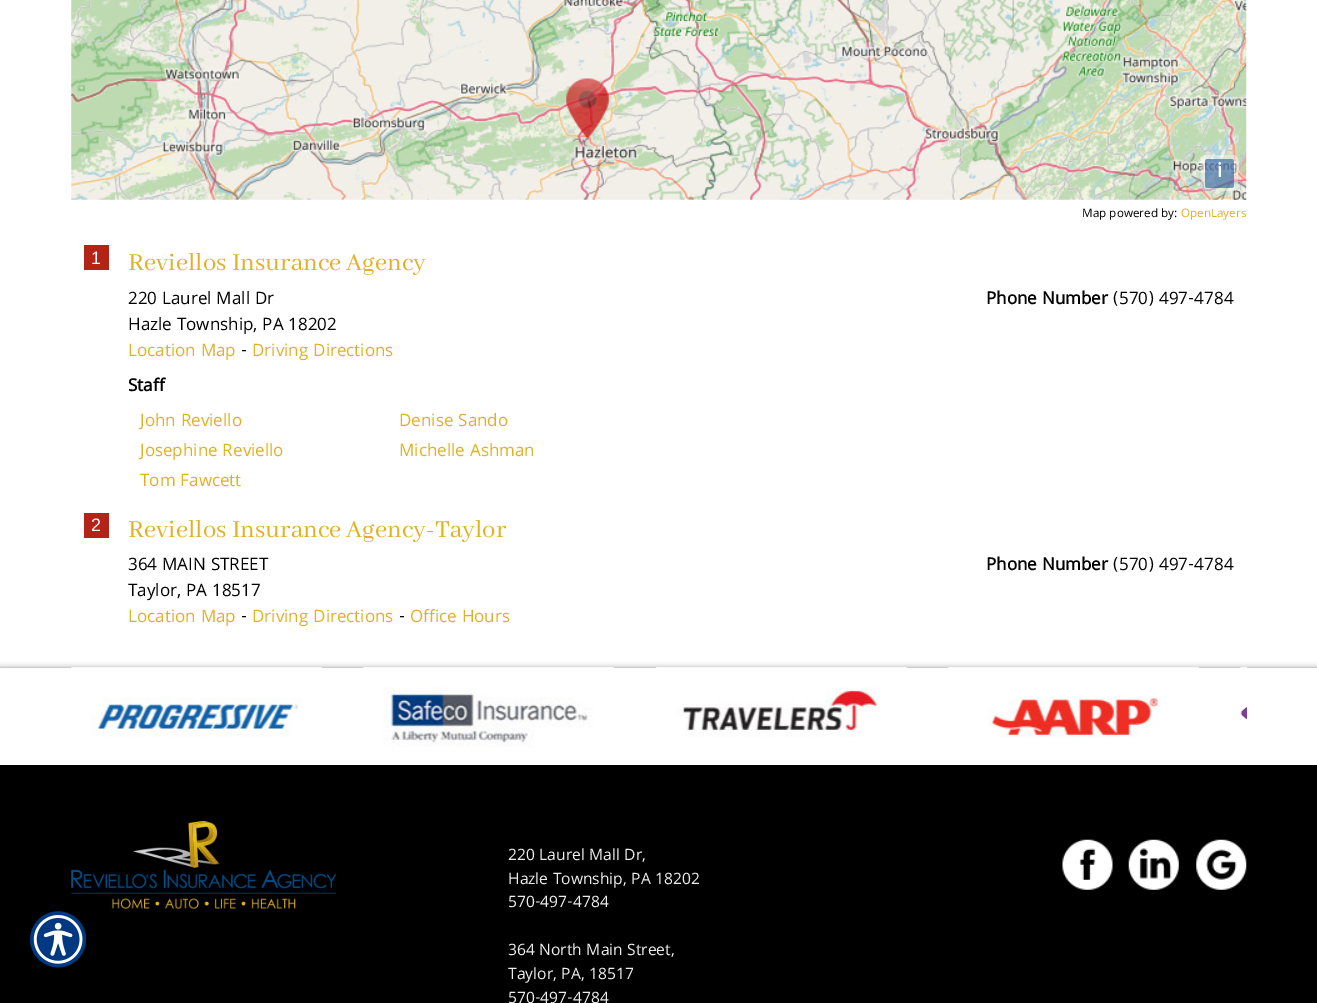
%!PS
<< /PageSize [1317 1003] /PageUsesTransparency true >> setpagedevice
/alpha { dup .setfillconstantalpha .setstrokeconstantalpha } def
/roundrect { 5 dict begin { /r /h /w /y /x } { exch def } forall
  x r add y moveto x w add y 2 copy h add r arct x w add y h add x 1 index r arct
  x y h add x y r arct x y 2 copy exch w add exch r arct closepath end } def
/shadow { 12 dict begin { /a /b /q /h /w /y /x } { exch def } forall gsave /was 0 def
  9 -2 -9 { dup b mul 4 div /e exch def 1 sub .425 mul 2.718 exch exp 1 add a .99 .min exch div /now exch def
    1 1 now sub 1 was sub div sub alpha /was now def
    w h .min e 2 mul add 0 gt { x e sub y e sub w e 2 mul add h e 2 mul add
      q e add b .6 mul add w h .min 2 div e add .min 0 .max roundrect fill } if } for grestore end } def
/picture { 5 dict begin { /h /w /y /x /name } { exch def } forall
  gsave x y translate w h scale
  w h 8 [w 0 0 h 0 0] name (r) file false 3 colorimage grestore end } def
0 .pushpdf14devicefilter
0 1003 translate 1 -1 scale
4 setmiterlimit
1 setgray
0 0 1317 1003 rectfill
0.118 setgray
0 668 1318 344 0 3 0.5 shadow
0 setgray
0 765 1317 238 rectfill
(img1.rgb) 30 911 56 57 picture
(img2.rgb) 71 0 1176 200 picture
0.4 alpha
1 setgray
1201 155 37 36 5 roundrect fill
0.5 alpha
0 0.235 0.533 setrgbcolor
1205 159 29 29 2.5 roundrect fill
/Khula-Bold [21 0 0 -21 0 0] selectfont
1 alpha
1 setgray
1217 177 moveto (i) show
/Khula-Regular [12.5 0 0 -12.5 0 0] selectfont
0 setgray
1082 217 moveto (Map powered by:) show
0.886 0.69 0.141 setrgbcolor
1181 217 moveto (OpenLayers) show
0.702 0.137 0.09 setrgbcolor
84 245 25 25 rectfill
/LiberationSans-Regular [18 0 0 -18 0 0] selectfont
1 setgray
91 264 moveto (1) show
/AbhayaLibre-Regular [26.7 0 0 -26.7 0 0] selectfont
0.886 0.69 0.141 setrgbcolor
128 270 moveto (Reviellos Insurance Agency) show
/Khula-Regular [18.25 0 0 -18.25 0 0] selectfont
0 setgray
128 304 moveto (220 Laurel Mall Dr) show
128 330 moveto (Hazle Township, PA 18202) show
/Khula-Bold [18.25 0 0 -18.25 0 0] selectfont
986 304 moveto (Phone Number) show
/Khula-Regular [18.25 0 0 -18.25 0 0] selectfont
1113 304 moveto (\(570\) 497-4784) show
0.886 0.69 0.141 setrgbcolor
128 356 moveto (Location Map) show
0 setgray
241 356 moveto (-) show
0.886 0.69 0.141 setrgbcolor
252 356 moveto (Driving Directions) show
/Khula-Bold [18.25 0 0 -18.25 0 0] selectfont
0 setgray
128 391 moveto (Staff) show
/Khula-Regular [18.25 0 0 -18.25 0 0] selectfont
0.886 0.69 0.141 setrgbcolor
140 426 moveto (John Reviello) show
399 426 moveto (Denise Sando) show
140 456 moveto (Josephine Reviello) show
399 456 moveto (Michelle Ashman) show
140 486 moveto (Tom Fawcett) show
0.702 0.137 0.09 setrgbcolor
84 513 25 25 rectfill
/LiberationSans-Regular [18 0 0 -18 0 0] selectfont
1 setgray
91 531 moveto (2) show
/AbhayaLibre-Regular [26.7 0 0 -26.7 0 0] selectfont
0.886 0.69 0.141 setrgbcolor
128 537 moveto (Reviellos Insurance Agency-Taylor) show
/Khula-Regular [18.25 0 0 -18.25 0 0] selectfont
0 setgray
128 570 moveto (364 MAIN STREET) show
128 596 moveto (Taylor, PA 18517) show
/Khula-Bold [18.25 0 0 -18.25 0 0] selectfont
986 570 moveto (Phone Number) show
/Khula-Regular [18.25 0 0 -18.25 0 0] selectfont
1113 570 moveto (\(570\) 497-4784) show
0.886 0.69 0.141 setrgbcolor
128 622 moveto (Location Map) show
0 setgray
241 622 moveto (-) show
0.886 0.69 0.141 setrgbcolor
252 622 moveto (Driving Directions) show
0 setgray
399 622 moveto (-) show
0.886 0.69 0.141 setrgbcolor
410 622 moveto (Office Hours) show
1 setgray
0 668 1317 97 rectfill
(img3.rgb) 71 667 251 70 picture
(img4.rgb) 363 667 251 80 picture
(img5.rgb) 656 667 251 70 picture
(img6.rgb) 948 667 251 71 picture
(img7.rgb) 1240 667 7 53 picture
(img8.rgb) 71 821 266 88 picture
/Khula-Regular [16.75 0 0 -16.75 0 0] selectfont
0.929 setgray
508 860 moveto (220 Laurel Mall Dr,) show
508 884 moveto (Hazle Township, PA 18202) show
508 907 moveto (570-497-4784) show
508 955 moveto (364 North Main Street,) show
508 979 moveto (Taylor, PA, 18517) show
508 1003 moveto (570-497-4784) show
(img9.rgb) 1062 839 51 51 picture
(img10.rgb) 1128 839 51 51 picture
(img11.rgb) 1196 839 51 51 picture
.poppdf14devicefilter showpage
